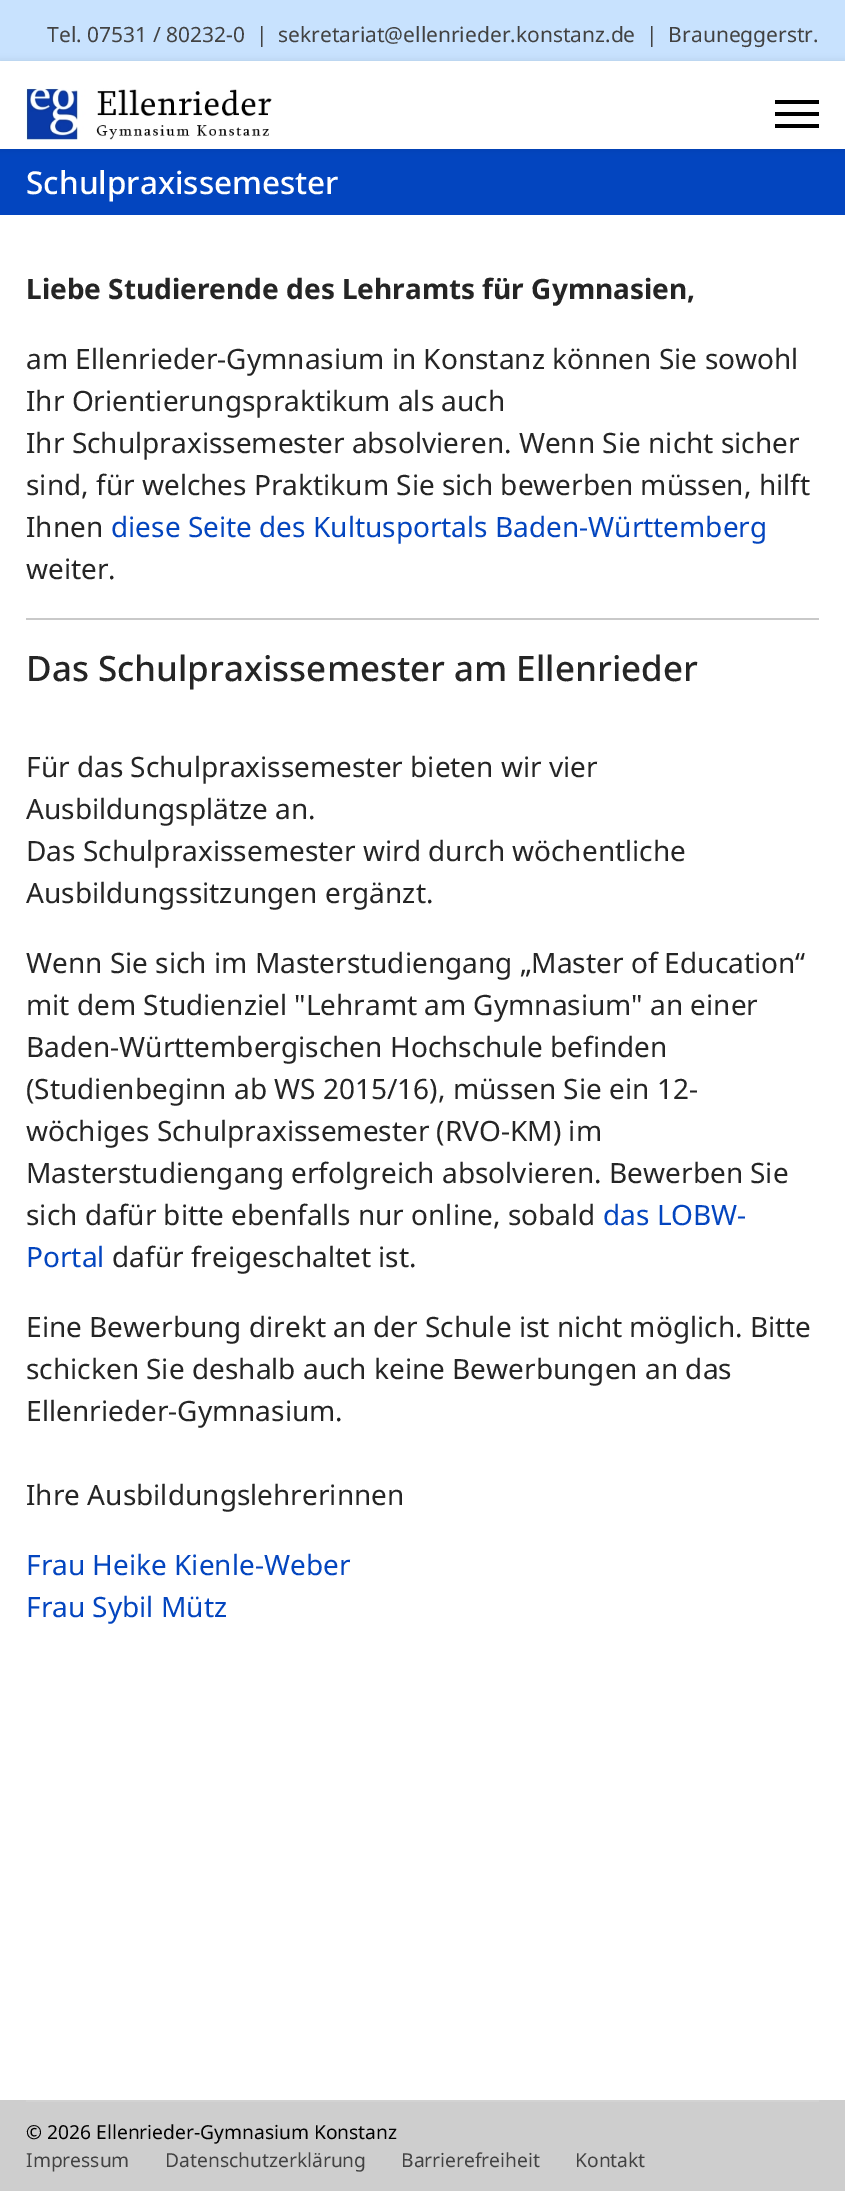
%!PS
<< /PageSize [845 2191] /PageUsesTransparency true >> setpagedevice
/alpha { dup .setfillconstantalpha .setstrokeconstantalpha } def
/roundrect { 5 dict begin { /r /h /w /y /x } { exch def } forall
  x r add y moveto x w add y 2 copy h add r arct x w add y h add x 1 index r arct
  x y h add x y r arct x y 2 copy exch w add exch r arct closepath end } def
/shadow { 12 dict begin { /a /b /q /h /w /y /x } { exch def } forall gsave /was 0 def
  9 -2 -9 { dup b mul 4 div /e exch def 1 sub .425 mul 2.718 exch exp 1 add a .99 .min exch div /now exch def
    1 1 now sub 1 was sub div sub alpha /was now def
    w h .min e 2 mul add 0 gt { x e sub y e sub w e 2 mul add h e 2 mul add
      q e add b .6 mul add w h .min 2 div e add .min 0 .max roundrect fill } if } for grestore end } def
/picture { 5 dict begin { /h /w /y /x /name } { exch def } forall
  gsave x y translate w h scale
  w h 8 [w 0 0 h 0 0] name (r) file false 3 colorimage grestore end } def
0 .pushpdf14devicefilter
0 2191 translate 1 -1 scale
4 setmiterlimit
1 setgray
0 0 845 2191 rectfill
0.784 0.886 0.996 setrgbcolor
0 0 845 61 rectfill
/NotoSans-Regular [21 0 0 -21 0 0] selectfont
0.259 setgray
47 42 moveto (Tel. 07531 / 80232-0) show
256 42 moveto (|) show
278 42 moveto (sekretariat@ellenrieder.konstanz.de) show
646 42 moveto (|  Brauneggerstr.) show
0.012 0.271 0.749 setrgbcolor
0 149 845 66 rectfill
0 setgray
0 61 845 88 0 3.5 0.1 shadow
1 setgray
0 61 845 88 rectfill
(img1.rgb) 26 88 246 52 picture
0 setgray
775 100 44 4 rectfill
775 112 44 4 rectfill
775 124 44 4 rectfill
/NotoSans-Medium [31.5 0 0 -31.5 0 0] selectfont
1 setgray
26 194 moveto (Schulpraxissemester) show
/NotoSans-Bold [28 0 0 -28 0 0] selectfont
0.145 setgray
26 299 moveto (Liebe Studierende des Lehramts für Gymnasien,) show
/NotoSans-Regular [28 0 0 -28 0 0] selectfont
26 369 moveto (am Ellenrieder-Gymnasium in Konstanz können Sie sowohl) show
26 411 moveto (Ihr Orientierungspraktikum als auch) show
26 453 moveto (Ihr Schulpraxissemester absolvieren. Wenn Sie nicht sicher) show
26 495 moveto (sind, für welches Praktikum Sie sich bewerben müssen, hilft) show
26 537 moveto (Ihnen) show
0.012 0.271 0.749 setrgbcolor
111 537 moveto (diese Seite des Kultusportals Baden-Württemberg) show
0.145 setgray
26 579 moveto (weiter.) show
0.788 setgray
26 618 793 2 rectfill
/NotoSans-Medium [35 0 0 -35 0 0] selectfont
0.145 setgray
26 681 moveto (Das Schulpraxissemester am Ellenrieder) show
/NotoSans-Regular [28 0 0 -28 0 0] selectfont
26 777 moveto (Für das Schulpraxissemester bieten wir vier) show
26 819 moveto (Ausbildungsplätze an.) show
26 861 moveto (Das Schulpraxissemester wird durch wöchentliche) show
26 903 moveto (Ausbildungssitzungen ergänzt.) show
26 973 moveto (Wenn Sie sich im Masterstudiengang „Master of Education“) show
26 1015 moveto (mit dem Studienziel "Lehramt am Gymnasium" an einer) show
26 1057 moveto (Baden-Württembergischen Hochschule befinden) show
26 1099 moveto (\(Studienbeginn ab WS 2015/16\), müssen Sie ein 12-) show
26 1141 moveto (wöchiges Schulpraxissemester \(RVO-KM\) im) show
26 1183 moveto (Masterstudiengang erfolgreich absolvieren. Bewerben Sie) show
26 1225 moveto (sich dafür bitte ebenfalls nur online, sobald) show
0.012 0.271 0.749 setrgbcolor
603 1225 moveto (das LOBW-) show
26 1267 moveto (Portal) show
0.145 setgray
112 1267 moveto (dafür freigeschaltet ist.) show
26 1337 moveto (Eine Bewerbung direkt an der Schule ist nicht möglich. Bitte) show
26 1379 moveto (schicken Sie deshalb auch keine Bewerbungen an das) show
26 1421 moveto (Ellenrieder-Gymnasium.) show
26 1505 moveto (Ihre Ausbildungslehrerinnen) show
0.012 0.271 0.749 setrgbcolor
26 1575 moveto (Frau Heike Kienle-Weber) show
26 1617 moveto (Frau Sybil Mütz) show
0.808 setgray
0 2100 845 91 rectfill
0.827 setgray
26 2100 793 2 rectfill
/NotoSans-Regular [19.25 0 0 -19.25 0 0] selectfont
0 setgray
26 2139 moveto (© 2026 Ellenrieder-Gymnasium Konstanz) show
0.259 setgray
26 2167 moveto (Impressum) show
165 2167 moveto (Datenschutzerklärung) show
401 2167 moveto (Barrierefreiheit) show
575 2167 moveto (Kontakt) show
.poppdf14devicefilter showpage
